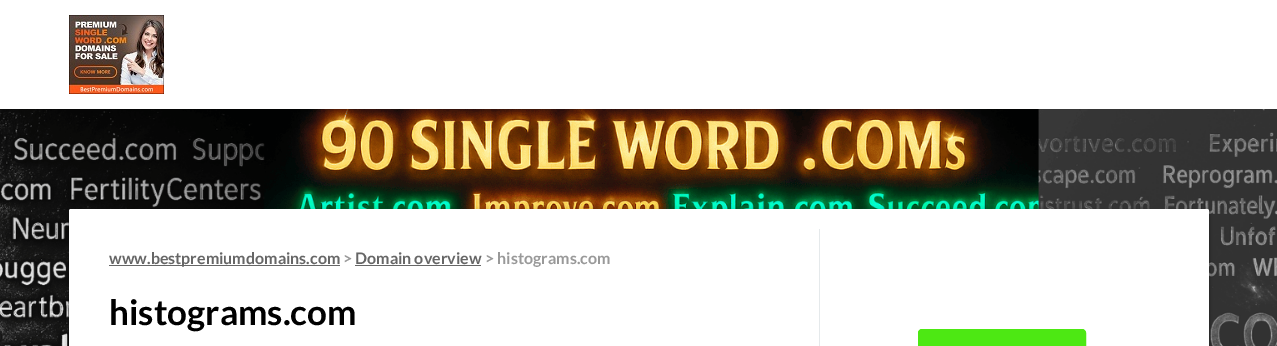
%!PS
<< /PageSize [1277 346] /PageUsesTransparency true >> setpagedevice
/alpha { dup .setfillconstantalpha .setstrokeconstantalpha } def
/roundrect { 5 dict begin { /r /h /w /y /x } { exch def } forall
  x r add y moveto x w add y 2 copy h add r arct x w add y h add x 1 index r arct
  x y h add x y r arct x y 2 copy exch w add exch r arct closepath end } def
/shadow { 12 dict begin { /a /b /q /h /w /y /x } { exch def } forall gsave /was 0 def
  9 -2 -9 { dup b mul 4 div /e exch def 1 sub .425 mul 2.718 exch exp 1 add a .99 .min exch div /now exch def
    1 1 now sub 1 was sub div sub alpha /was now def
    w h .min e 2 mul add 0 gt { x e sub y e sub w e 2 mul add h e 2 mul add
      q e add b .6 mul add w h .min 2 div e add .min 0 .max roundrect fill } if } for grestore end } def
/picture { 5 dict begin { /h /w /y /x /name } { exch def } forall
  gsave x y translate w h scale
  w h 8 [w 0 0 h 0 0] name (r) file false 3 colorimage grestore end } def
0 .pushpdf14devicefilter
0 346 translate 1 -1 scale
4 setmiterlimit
1 setgray
0 0 1277 346 rectfill
(img1.rgb) 69 15 95 79 picture
(img2.rgb) 0 109 1277 237 picture
0 setgray
69 212 1140 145 2 3 0.23 shadow
69 212 1140 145 2 3 0.16 shadow
1 setgray
69 209 1140 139 2 roundrect fill
0.898 0.914 0.922 setrgbcolor
819 229 1 117 rectfill
0.4 setgray
109 265 231 1 rectfill
/Lato-Bold [16 0 0 -16 0 0] selectfont
109 264 moveto (www.bestpremiumdomains.com) show
0.6 setgray
343 264 moveto (>) show
0.4 setgray
355 264 moveto (Domain overview) show
355 265 126 1 rectfill
0.6 setgray
485 264 moveto (> histograms.com) show
/Lato-Bold [35 0 0 -35 0 0] selectfont
0 setgray
109 325 moveto (histograms.com) show
0.302 0.91 0.075 setrgbcolor
918.5 329.5 167 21 3.5 roundrect gsave fill grestore
stroke
.poppdf14devicefilter showpage
